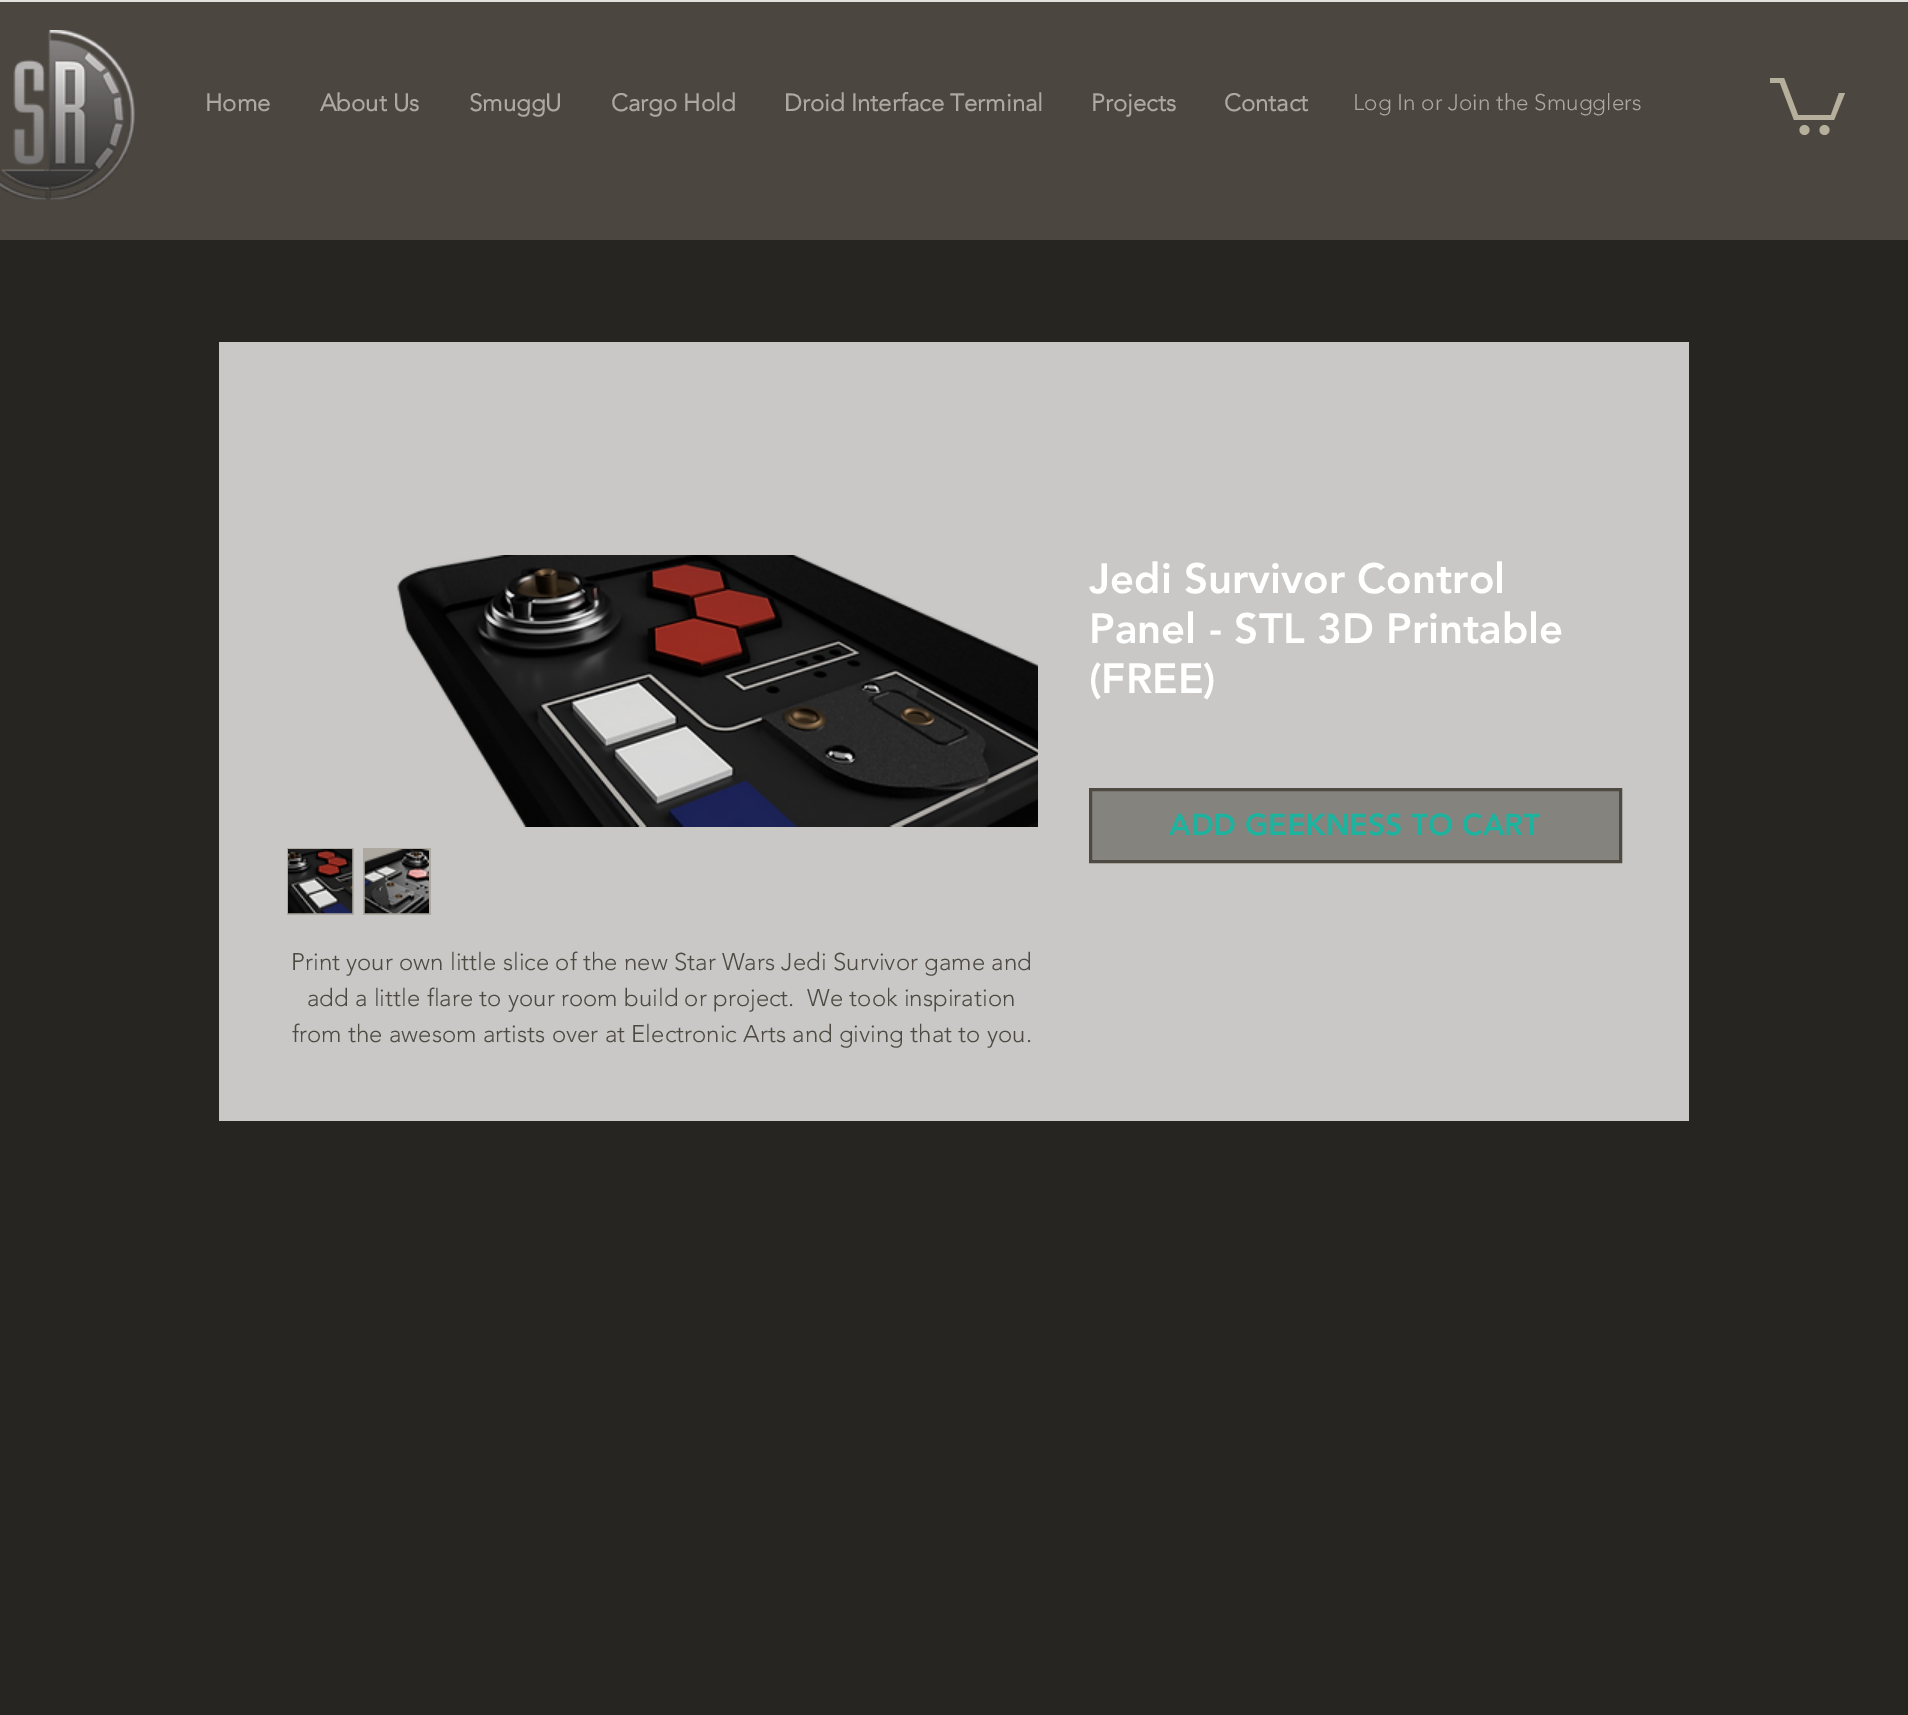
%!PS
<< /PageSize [1908 1715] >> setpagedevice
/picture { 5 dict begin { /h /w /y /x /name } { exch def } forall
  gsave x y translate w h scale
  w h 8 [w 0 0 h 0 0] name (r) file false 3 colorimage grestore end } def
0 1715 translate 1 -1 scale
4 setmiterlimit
0.153 0.145 0.129 setrgbcolor
0 0 1908 1715 rectfill
0.294 0.278 0.251 setrgbcolor
0 2 1908 238 rectfill
0.886 0.882 0.871 setrgbcolor
0 0 1908 2 rectfill
(img1.rgb) 0 30 135 170 picture
/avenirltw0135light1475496-Bold [24 0 0 -24 0 0] selectfont
0.678 0.663 0.627 setrgbcolor
205 111 moveto (Home) show
320 111 moveto (About Us) show
469 111 moveto (SmuggU) show
611 111 moveto (Cargo Hold) show
784 111 moveto (Droid Interface Terminal) show
1091 111 moveto (Projects) show
1224 111 moveto (Contact) show
/avenirltw0135light1475496-Light [22.5 0 0 -22.5 0 0] selectfont
1353 110 moveto (Log In or Join the Smugglers) show
0.714 0.686 0.608 setrgbcolor
newpath 1845 93 moveto 1834 120 lineto 1794 120 lineto 1780 83 lineto 1770 83 lineto 1770 78 lineto 1784 78 lineto 1798 115 lineto 1831 115 lineto 1839 93 lineto fill
newpath 1824.5 130 5 0 360 arc closepath fill
newpath 1804.5 130 5 0 360 arc closepath fill
0.788 0.784 0.78 setrgbcolor
219 342 1470 779 rectfill
/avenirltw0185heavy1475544-Black [42 0 0 -42 0 0] selectfont
1 setgray
1089 593 moveto (Jedi Survivor Control) show
1089 643 moveto (Panel - STL 3D Printable) show
1089 693 moveto (\(FREE\)) show
0.522 0.514 0.494 setrgbcolor
newpath 1090.5 789.5 moveto 1620.5 789.5 lineto 1620.5 861.5 lineto 1090.5 861.5 lineto closepath gsave fill grestore
0.306 0.29 0.259 setrgbcolor
3 setlinewidth
stroke
/avenirltw0185heavy1475544-Black [30 0 0 -30 0 0] selectfont
0.114 0.702 0.624 setrgbcolor
1169 835 moveto (ADD GEEKNESS TO CART) show
(img2.rgb) 397 555 641 272 picture
0.678 0.663 0.627 setrgbcolor
287 848 67 67 rectfill
(img3.rgb) 288 849 65 65 picture
363 848 68 67 rectfill
(img4.rgb) 364 849 65 65 picture
/avenirltw0135light1475496-Light [24 0 0 -24 0 0] selectfont
0.306 0.29 0.259 setrgbcolor
291 970 moveto (Print your own little slice of the new Star Wars Jedi Survivor game and) show
307 1006 moveto (add a little flare to your room build or project.  We took inspiration) show
292 1042 moveto (from the awesom artists over at Electronic Arts and giving that to you.) show
showpage
